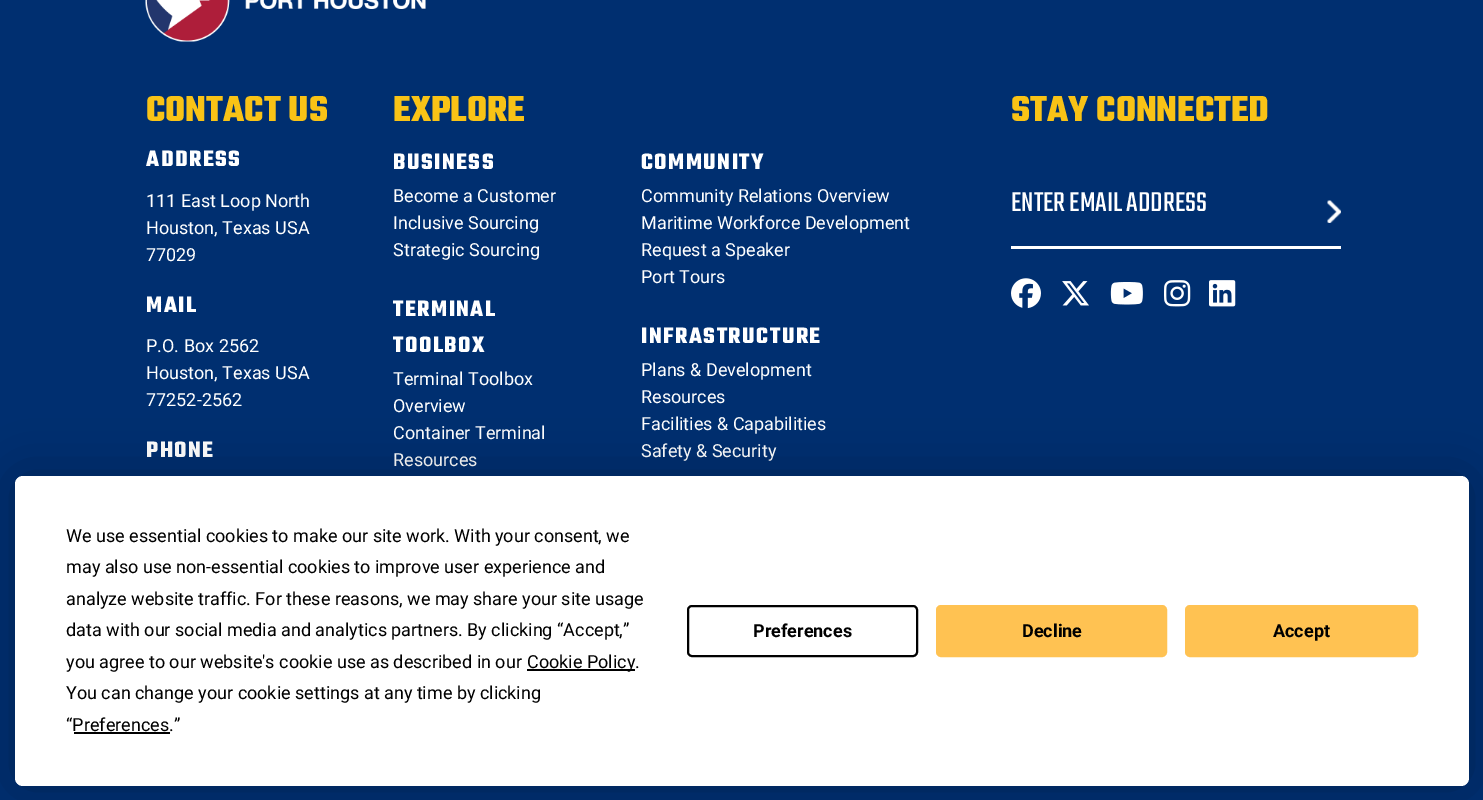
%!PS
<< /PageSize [1483 800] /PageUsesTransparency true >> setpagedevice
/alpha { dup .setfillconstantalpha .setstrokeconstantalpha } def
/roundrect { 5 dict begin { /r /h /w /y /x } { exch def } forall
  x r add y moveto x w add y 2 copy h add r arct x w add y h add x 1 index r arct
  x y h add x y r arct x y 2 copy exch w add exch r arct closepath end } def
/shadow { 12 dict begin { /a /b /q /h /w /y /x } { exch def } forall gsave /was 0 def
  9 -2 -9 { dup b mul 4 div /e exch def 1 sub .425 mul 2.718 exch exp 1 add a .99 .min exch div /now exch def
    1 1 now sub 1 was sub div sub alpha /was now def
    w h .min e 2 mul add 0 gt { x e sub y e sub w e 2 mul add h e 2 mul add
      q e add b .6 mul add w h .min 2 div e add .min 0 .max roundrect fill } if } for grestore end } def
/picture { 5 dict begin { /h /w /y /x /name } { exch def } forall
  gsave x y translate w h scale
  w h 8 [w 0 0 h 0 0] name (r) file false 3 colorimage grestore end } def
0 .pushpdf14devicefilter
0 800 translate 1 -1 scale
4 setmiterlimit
0 0.184 0.439 setrgbcolor
0 0 1483 800 rectfill
(img1.rgb) 145 0 281 42 picture
/Teko-Light [39 0 0 -39 0 0] selectfont
0.976 0.765 0.086 setrgbcolor
146 121 moveto (CONTACT US) show
/Teko-Light [24 0 0 -24 0 0] selectfont
1 setgray
146 166 moveto 1.5 0 (ADDRESS) ashow
/Roboto-Regular [18 0 0 -18 0 0] selectfont
146 207 moveto (111 East Loop North) show
146 234 moveto (Houston, Texas USA) show
146 261 moveto (77029) show
/Teko-Light [24 0 0 -24 0 0] selectfont
146 312 moveto 1.5 0 (MAIL) ashow
/Roboto-Regular [18 0 0 -18 0 0] selectfont
146 352 moveto (P.O. Box 2562) show
146 379 moveto (Houston, Texas USA) show
146 406 moveto (77252-2562) show
/Teko-Light [24 0 0 -24 0 0] selectfont
146 457 moveto 1.5 0 (PHONE) ashow
/Teko-Light [39 0 0 -39 0 0] selectfont
0.976 0.765 0.086 setrgbcolor
393 121 moveto (EXPLORE) show
/Teko-Light [24 0 0 -24 0 0] selectfont
1 setgray
393 169 moveto 1.5 0 (BUSINESS) ashow
/Roboto-Regular [18 0 0 -18 0 0] selectfont
393 202 moveto (Become a Customer) show
393 229 moveto (Inclusive Sourcing) show
393 256 moveto (Strategic Sourcing) show
/Teko-Light [24 0 0 -24 0 0] selectfont
393 316 moveto 1.5 0 (TERMINAL) ashow
393 352 moveto 1.5 0 (TOOLBOX) ashow
/Roboto-Regular [18 0 0 -18 0 0] selectfont
393 385 moveto (Terminal Toolbox) show
393 412 moveto (Overview) show
393 439 moveto (Container Terminal) show
393 466 moveto (Resources) show
/Teko-Light [24 0 0 -24 0 0] selectfont
641 169 moveto 1.5 0 (COMMUNITY) ashow
/Roboto-Regular [18 0 0 -18 0 0] selectfont
641 202 moveto (Community Relations Overview) show
641 229 moveto (Maritime Workforce Development) show
641 256 moveto (Request a Speaker) show
641 283 moveto (Port Tours) show
/Teko-Light [24 0 0 -24 0 0] selectfont
641 343 moveto 1.5 0 (INFRASTRUCTURE) ashow
/Roboto-Regular [18 0 0 -18 0 0] selectfont
641 376 moveto (Plans & Development) show
641 403 moveto (Resources) show
641 430 moveto (Facilities & Capabilities) show
641 457 moveto (Safety & Security) show
/Teko-Light [39 0 0 -39 0 0] selectfont
0.976 0.765 0.086 setrgbcolor
1011 121 moveto (STAY CONNECTED) show
1 setgray
1011 246 330 3 rectfill
/Teko-Regular [30 0 0 -30 0 0] selectfont
1011 211 moveto (ENTER EMAIL ADDRESS) show
(img2.rgb) 1327 200 14 23 picture
(img3.rgb) 1011 278 30 31 picture
(img4.rgb) 1062 281 27 25 picture
(img5.rgb) 1110 282 33 23 picture
(img6.rgb) 1164 280 27 27 picture
(img7.rgb) 1209 280 27 27 picture
0 setgray
15 476 1454 310 8 26 0.25 shadow
1 setgray
15 476 1454 310 8 roundrect fill
/Roboto-Regular [18 0 0 -18 0 0] selectfont
0 setgray
66 542 moveto (We use essential cookies to make our site work. With your consent, we) show
66 573 moveto (may also use non-essential cookies to improve user experience and) show
66 605 moveto (analyze website traffic. For these reasons, we may share your site usage) show
66 636 moveto (data with our social media and analytics partners. By clicking “Accept,”) show
66 668 moveto (you agree to our website's cookie use as described in our) show
527 669 108 2 rectfill
527 668 moveto (Cookie Policy.) show
66 699 moveto (You can change your cookie settings at any time by clicking) show
66 731 moveto (“Preferences.”) show
74 732 96 2 rectfill
2 setlinewidth
688 606 229 50 4 roundrect stroke
/Roboto-Bold [18 0 0 -18 0 0] selectfont
753 637 moveto (Preferences) show
1 0.761 0.322 setrgbcolor
937 606 229 50 4 roundrect gsave fill grestore
stroke
0 setgray
1022 637 moveto (Decline) show
1 0.761 0.322 setrgbcolor
1186 606 231 50 4 roundrect gsave fill grestore
stroke
0 setgray
1273 637 moveto (Accept) show
.poppdf14devicefilter showpage
